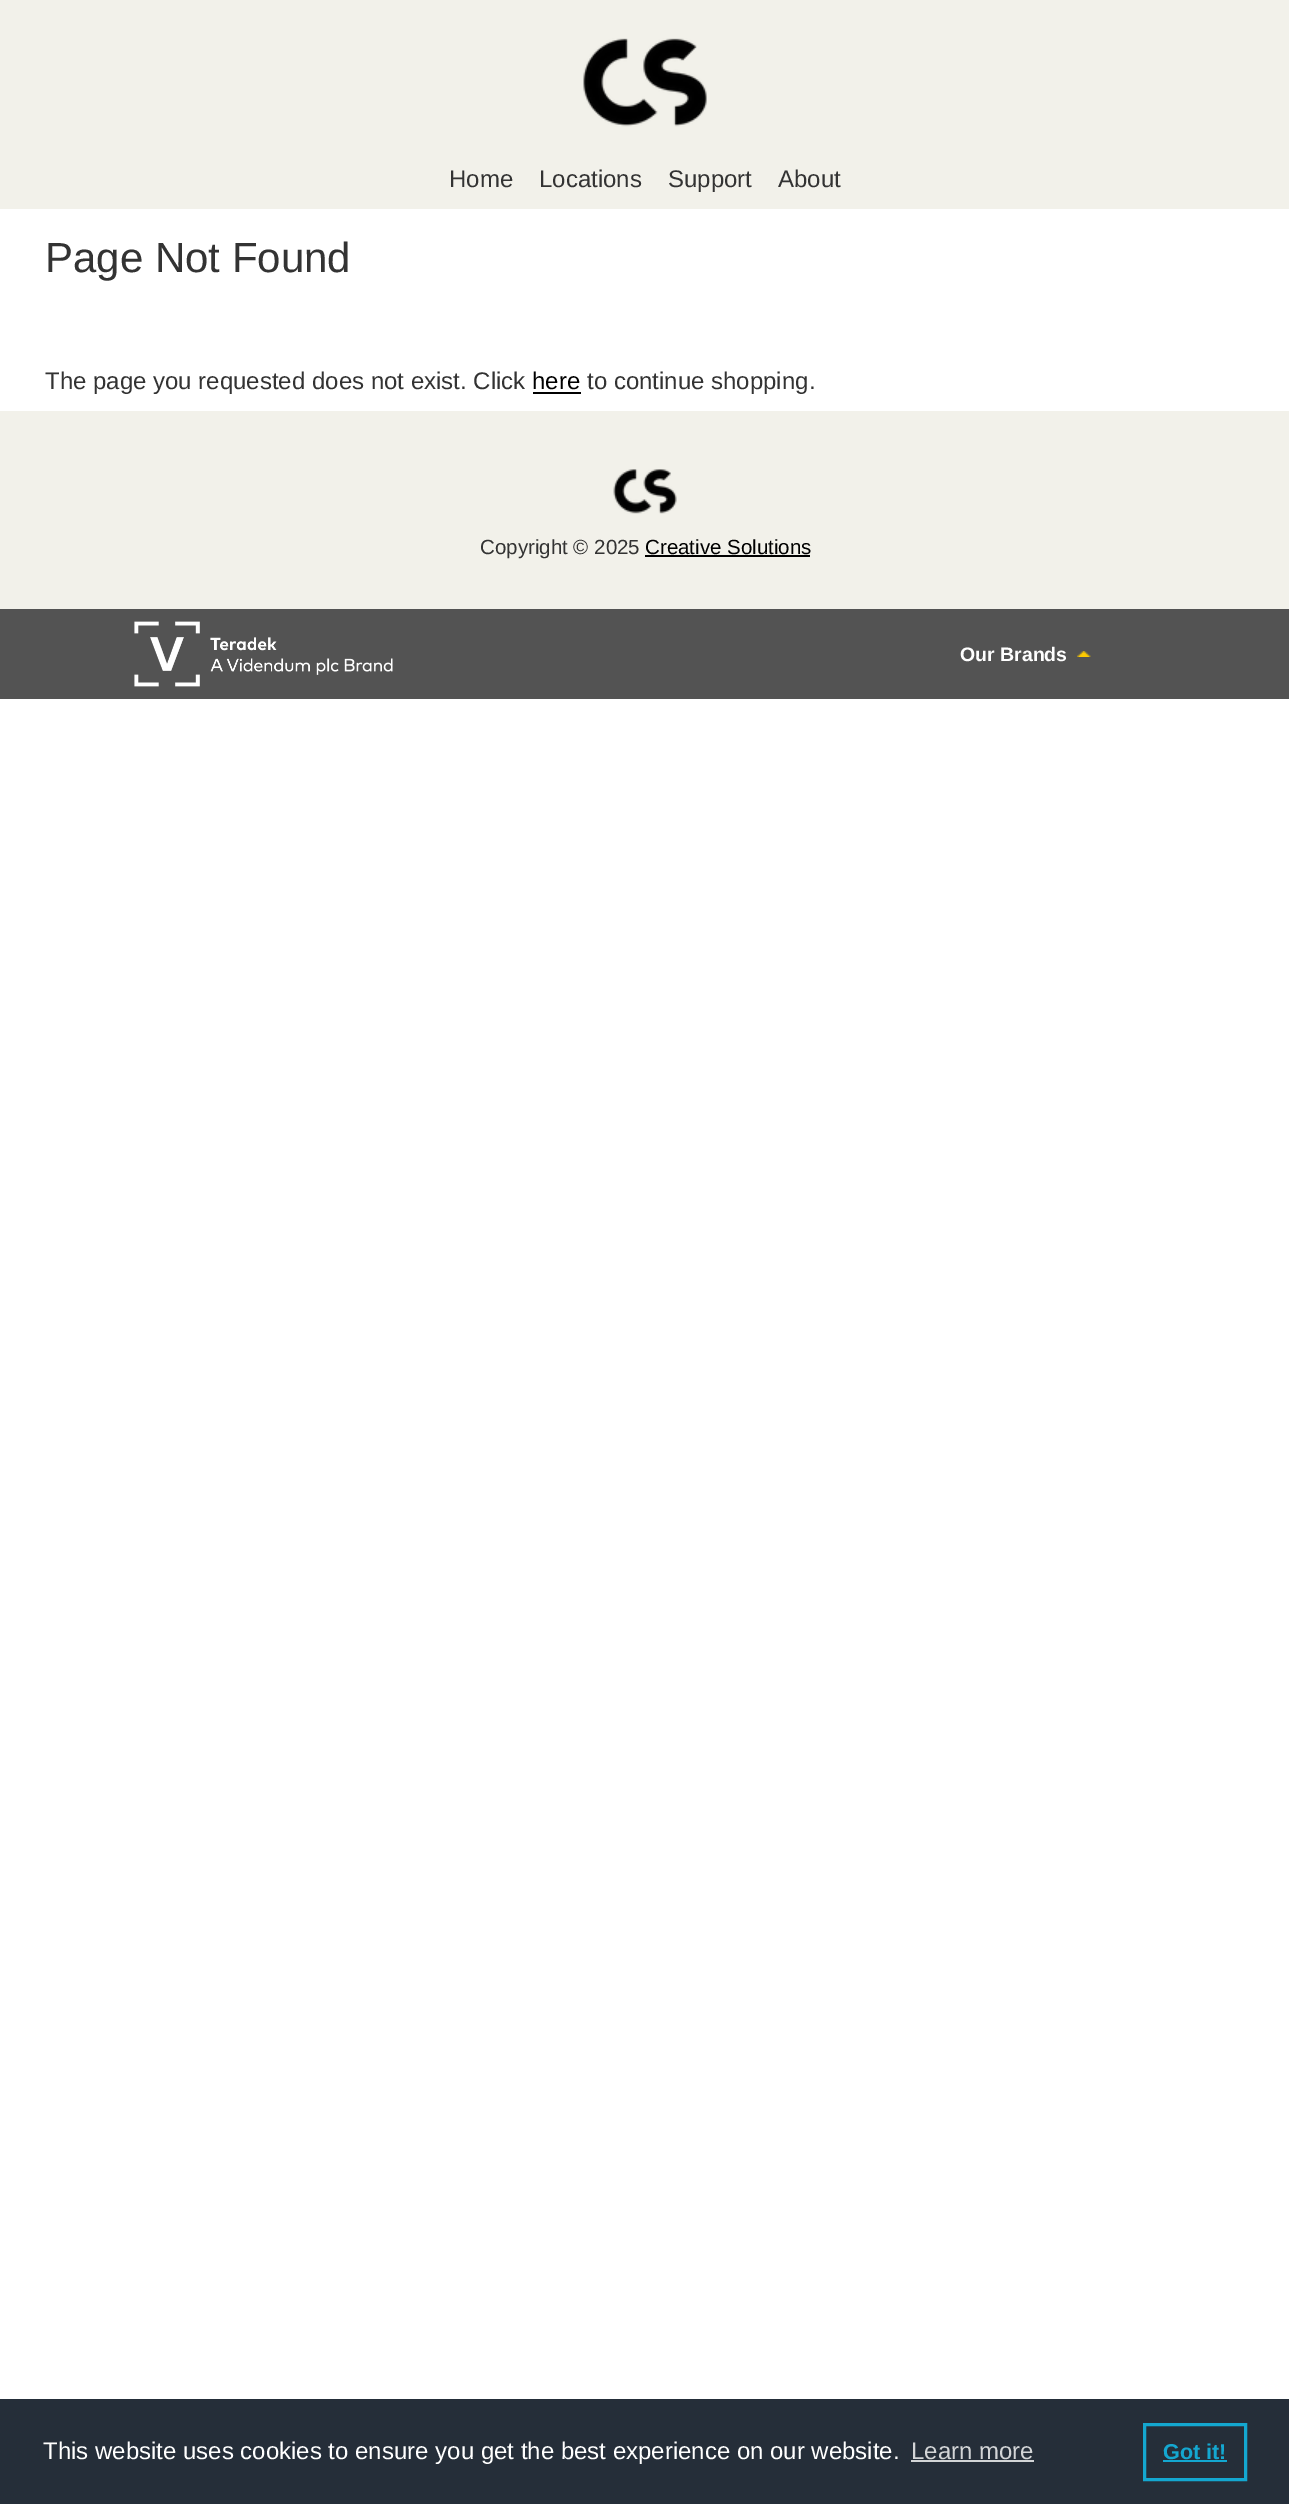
%!PS
<< /PageSize [1289 2504] >> setpagedevice
/picture { 5 dict begin { /h /w /y /x /name } { exch def } forall
  gsave x y translate w h scale
  w h 8 [w 0 0 h 0 0] name (r) file false 3 colorimage grestore end } def
0 2504 translate 1 -1 scale
4 setmiterlimit
1 setgray
0 0 1289 2504 rectfill
0.949 0.945 0.918 setrgbcolor
0 0 1289 209 rectfill
(img1.rgb) 583 38 124 89 picture
/LiberationSans-Regular [24 0 0 -24 0 0] selectfont
0.2 setgray
449 187 moveto (Home) show
539 187 moveto (Locations) show
668 187 moveto (Support) show
778 187 moveto (About) show
/LiberationSans-Regular [42 0 0 -42 0 0] selectfont
45 272 moveto (Page Not Found) show
/LiberationSans-Regular [24 0 0 -24 0 0] selectfont
45 389 moveto (The page you requested does not exist. Click) show
0 setgray
532 389 moveto (here) show
533 392 48 2 rectfill
0.2 setgray
587 389 moveto (to continue shopping.) show
0.949 0.945 0.918 setrgbcolor
0 411 1289 198 rectfill
(img2.rgb) 613 469 64 45 picture
/LiberationSans-Regular [20.5 0 0 -20.5 0 0] selectfont
0.2 setgray
480 554 moveto (Copyright © 2025) show
0 setgray
645 554 moveto (Creative Solutions) show
645 555 165 2 rectfill
0.325 setgray
0 609 1289 90 rectfill
(img3.rgb) 134 621 259 66 picture
(img4.rgb) 1077 651 14 6 picture
/LiberationSans-Bold [19.5 0 0 -19.5 0 0] selectfont
1 setgray
960 661 moveto (Our Brands) show
0.145 0.18 0.224 setrgbcolor
0 2399 1289 105 rectfill
/LiberationSans-Regular [24 0 0 -24 0 0] selectfont
1 setgray
43 2459 moveto (This website uses cookies to ensure you get the best experience on our website.) show
0.827 0.835 0.843 setrgbcolor
911 2459 moveto (Learn more) show
911 2460 123 2 rectfill
0.078 0.655 0.816 setrgbcolor
3 setlinewidth
1144.5 2424.5 101 55 rectstroke
/LiberationSans-Bold [21.5 0 0 -21.5 0 0] selectfont
1163 2459 moveto (Got it!) show
1163 2460 64 2 rectfill
showpage
